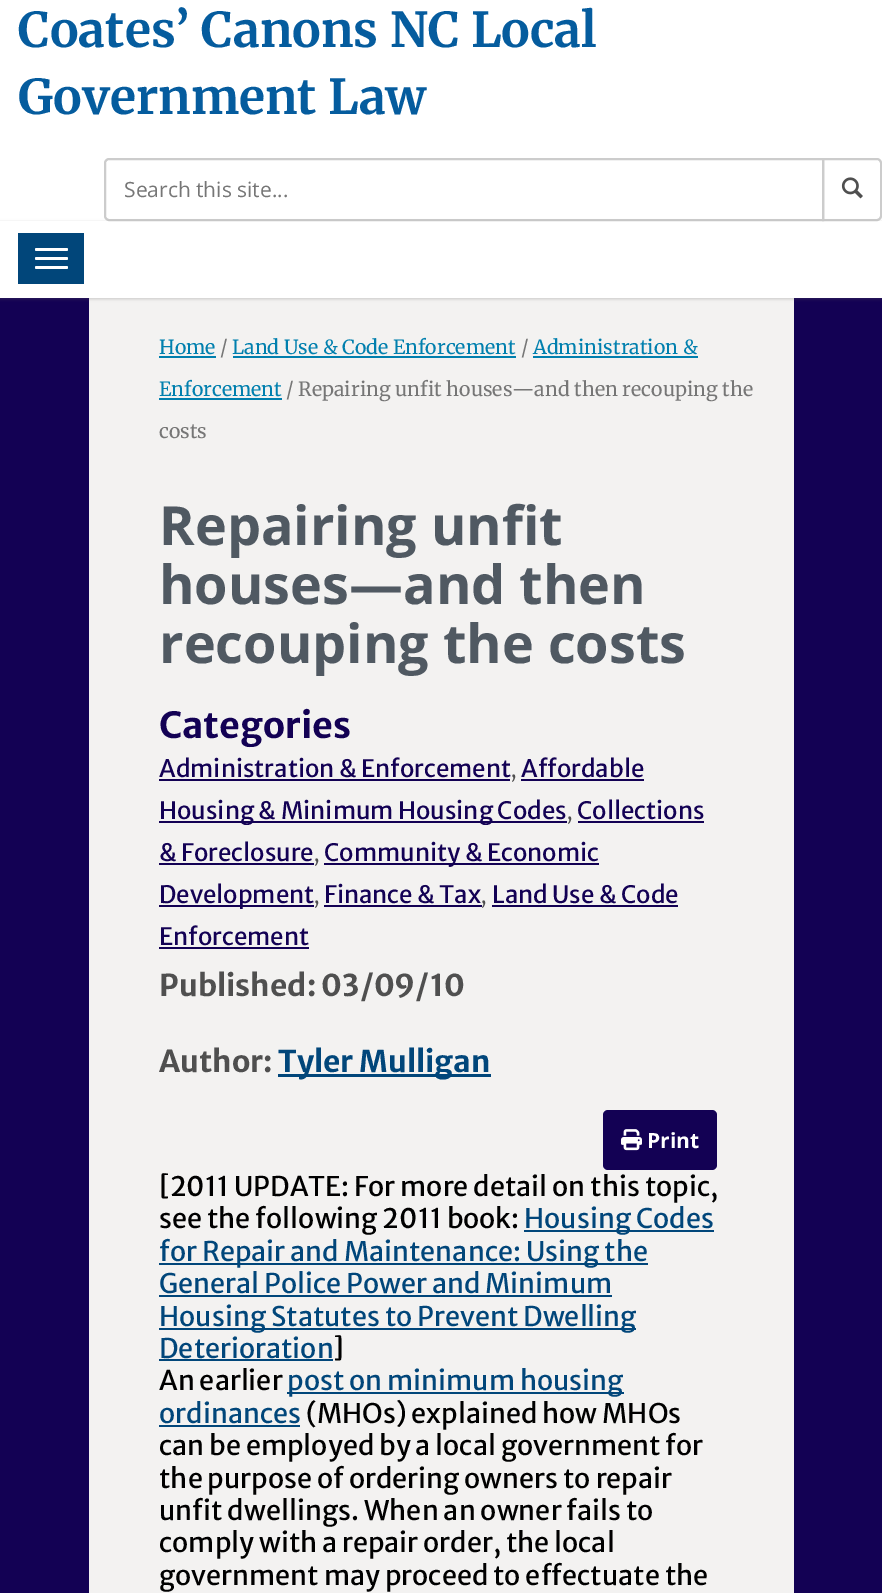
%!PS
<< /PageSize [882 1593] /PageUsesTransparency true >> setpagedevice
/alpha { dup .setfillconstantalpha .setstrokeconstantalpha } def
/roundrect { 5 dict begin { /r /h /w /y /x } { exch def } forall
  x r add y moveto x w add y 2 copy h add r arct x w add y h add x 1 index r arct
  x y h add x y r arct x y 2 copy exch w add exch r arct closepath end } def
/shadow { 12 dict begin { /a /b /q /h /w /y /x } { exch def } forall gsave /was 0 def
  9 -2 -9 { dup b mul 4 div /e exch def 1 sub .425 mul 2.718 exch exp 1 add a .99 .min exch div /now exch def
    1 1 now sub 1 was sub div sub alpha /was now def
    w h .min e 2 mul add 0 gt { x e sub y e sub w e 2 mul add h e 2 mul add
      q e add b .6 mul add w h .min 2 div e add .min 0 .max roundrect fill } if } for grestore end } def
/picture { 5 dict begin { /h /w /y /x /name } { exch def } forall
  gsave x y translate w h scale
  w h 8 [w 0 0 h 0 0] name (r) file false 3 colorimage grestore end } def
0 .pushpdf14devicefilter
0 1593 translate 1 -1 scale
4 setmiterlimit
1 setgray
0 0 882 1593 rectfill
/Merriweather-Bold [48 0 0 -48 0 0] selectfont
0.02 0.361 0.62 setrgbcolor
18 47 moveto (Coates’ Canons NC Local) show
18 114 moveto (Government Law) show
0.8 setgray
2 setlinewidth
newpath 823 159 moveto 877 159 lineto 879 159 881 161 881 163 curveto 881 216 lineto 881 218 879 220 877 220 curveto 823 220 lineto closepath stroke
1 setgray
newpath 109 159 moveto 823 159 lineto 823 220 lineto 109 220 lineto 107 220 105 218 105 216 curveto 105 163 lineto 105 161 107 159 109 159 curveto closepath gsave fill grestore
0.8 setgray
stroke
/OpenSans-Regular [21 0 0 -21 0 0] selectfont
0.463 setgray
124 197 moveto (Search this site...) show
(img1.rgb) 841 177 22 22 picture
0.075 0.004 0.329 setrgbcolor
0 298 882 1295 rectfill
0.953 0.949 0.945 setrgbcolor
89 298 705 1295 rectfill
gsave
newpath 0 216 moveto 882 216 lineto 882 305 lineto 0 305 lineto closepath 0 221 moveto 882 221 lineto 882 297 lineto 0 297 lineto closepath eoclip newpath
0.392 setgray
0 222 882 77 0 1.5 0.3 shadow
grestore
1 setgray
0 297 882 1 rectfill
0.004 0.275 0.478 setrgbcolor
18 233 66 51 rectfill
1 setgray
35 248 33 3 1.5 roundrect fill
35 257 33 3 1.5 roundrect fill
35 266 33 3 1.5 roundrect fill
/Merriweather-Regular [19.5 0 0 -19.5 0 0] selectfont
0 0.498 0.682 setrgbcolor
159 354 moveto (Home) show
159 356 57 2 rectfill
0.463 setgray
220 354 moveto (/) show
0 0.498 0.682 setrgbcolor
232 354 moveto (Land Use & Code Enforcement) show
233 356 283 2 rectfill
0.463 setgray
521 354 moveto (/) show
0 0.498 0.682 setrgbcolor
533 354 moveto (Administration &) show
533 356 165 2 rectfill
159 396 moveto (Enforcement) show
159 398 123 2 rectfill
0.463 setgray
286 396 moveto (/ Repairing unfit houses—and then recouping the) show
159 438 moveto (costs) show
/OpenSans-Bold [54 0 0 -54 0 0] selectfont
0.314 0.349 0.384 setrgbcolor
159 545 moveto (Repairing unfit) show
159 604 moveto (houses—and then) show
159 663 moveto (recouping the costs) show
/MerriweatherSans-Bold [36 0 0 -36 0 0] selectfont
0.075 0.004 0.329 setrgbcolor
159 738 moveto (Categories) show
/MerriweatherSans-Regular [24 0 0 -24 0 0] selectfont
159 777 moveto (Administration & Enforcement) show
159 779 351 2 rectfill
/Merriweather-Regular [21 0 0 -21 0 0] selectfont
0.31 setgray
511 777 moveto (,) show
/MerriweatherSans-Regular [24 0 0 -24 0 0] selectfont
0.075 0.004 0.329 setrgbcolor
521 777 moveto (Affordable) show
521 779 123 2 rectfill
159 821 408 2 rectfill
159 819 moveto (Housing & Minimum Housing Codes) show
/Merriweather-Regular [21 0 0 -21 0 0] selectfont
0.31 setgray
567 819 moveto (,) show
/MerriweatherSans-Regular [24 0 0 -24 0 0] selectfont
0.075 0.004 0.329 setrgbcolor
577 819 moveto (Collections) show
578 821 126 2 rectfill
159 861 moveto (& Foreclosure) show
159 863 155 2 rectfill
/Merriweather-Regular [21 0 0 -21 0 0] selectfont
0.31 setgray
314 861 moveto (,) show
0.075 0.004 0.329 setrgbcolor
324 863 275 2 rectfill
/MerriweatherSans-Regular [24 0 0 -24 0 0] selectfont
324 861 moveto (Community & Economic) show
159 905 155 2 rectfill
159 903 moveto (Development) show
/Merriweather-Regular [21 0 0 -21 0 0] selectfont
0.31 setgray
314 903 moveto (,) show
/MerriweatherSans-Regular [24 0 0 -24 0 0] selectfont
0.075 0.004 0.329 setrgbcolor
324 903 moveto (Finance & Tax) show
324 905 158 2 rectfill
/Merriweather-Regular [21 0 0 -21 0 0] selectfont
0.31 setgray
481 903 moveto (,) show
/MerriweatherSans-Regular [24 0 0 -24 0 0] selectfont
0.075 0.004 0.329 setrgbcolor
492 903 moveto (Land Use & Code) show
492 905 186 2 rectfill
159 945 moveto (Enforcement) show
159 947 150 2 rectfill
/MerriweatherSans-Bold [30 0 0 -30 0 0] selectfont
0.31 setgray
159 996 moveto (Published: 03/09/10) show
159 1072 moveto (Author:) show
0.004 0.275 0.478 setrgbcolor
278 1074 213 3 rectfill
278 1072 moveto (Tyler Mulligan) show
0.075 0.004 0.329 setrgbcolor
603 1110 114 60 5 roundrect fill
(img2.rgb) 621 1129 21 22 picture
/OpenSans-Bold [21 0 0 -21 0 0] selectfont
1 setgray
647 1148 moveto (Print) show
/MerriweatherSans-Regular [27 0 0 -27 0 0] selectfont
0 setgray
159 1196 moveto ([2011 UPDATE: For more detail on this topic,) show
159 1228 moveto (see the following 2011 book:) show
0.004 0.275 0.478 setrgbcolor
524 1230 190 2 rectfill
524 1228 moveto (Housing Codes) show
159 1263 489 2 rectfill
159 1261 moveto (for Repair and Maintenance: Using the) show
159 1293 moveto (General Police Power and Minimum) show
159 1295 453 2 rectfill
159 1328 477 2 rectfill
159 1326 moveto (Housing Statutes to Prevent Dwelling) show
159 1358 moveto (Deterioration) show
159 1359 174 2 rectfill
0 setgray
333 1358 moveto (]) show
159 1390 moveto (An earlier) show
0.004 0.275 0.478 setrgbcolor
287 1392 337 2 rectfill
287 1390 moveto (post on minimum housing) show
159 1423 moveto (ordinances) show
159 1425 141 2 rectfill
0 setgray
306 1423 moveto (\(MHOs\) explained how MHOs) show
159 1455 moveto (can be employed by a local government for) show
159 1488 moveto (the purpose of ordering owners to repair) show
159 1520 moveto (unfit dwellings. When an owner fails to) show
159 1552 moveto (comply with a repair order, the local) show
159 1585 moveto (government may proceed to effectuate the) show
.poppdf14devicefilter showpage
